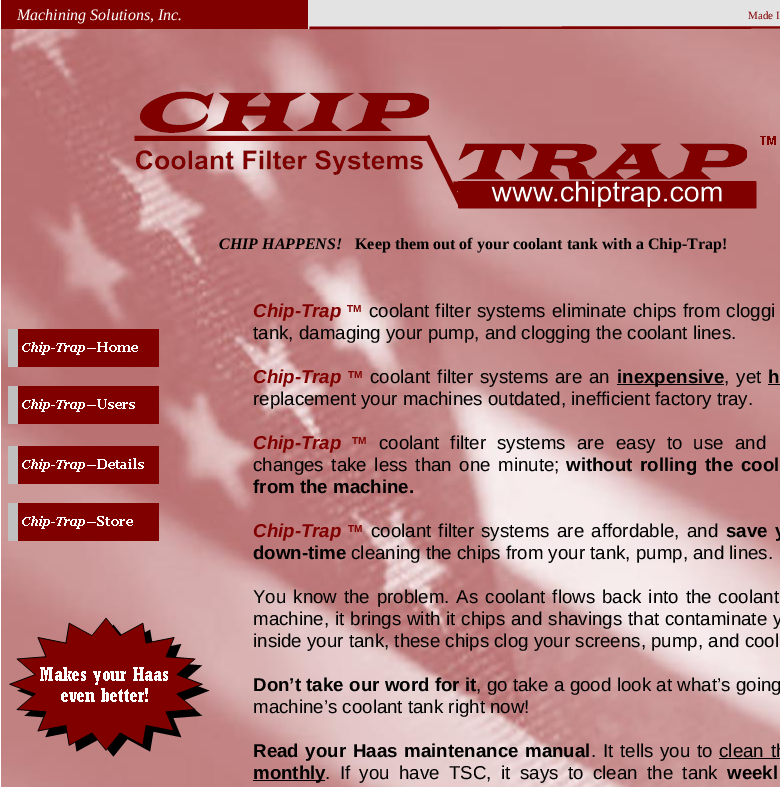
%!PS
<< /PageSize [780 787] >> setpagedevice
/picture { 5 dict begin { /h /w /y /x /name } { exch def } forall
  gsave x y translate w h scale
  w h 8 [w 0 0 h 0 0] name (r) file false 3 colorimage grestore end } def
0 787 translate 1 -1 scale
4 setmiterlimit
1 setgray
0 0 780 787 rectfill
(img1.rgb) 1 0 779 29 picture
/LiberationSerif-Italic [16 0 0 -16 0 0] selectfont
17 20 moveto (Machining Solutions, Inc.) show
/LiberationSerif-Regular [11 0 0 -11 0 0] selectfont
0.502 0 0 setrgbcolor
748 19 moveto (Made I) show
(img3.rgb) 1 29 779 758 picture
(img2.rgb) 309 26 471 4 picture
(img4.rgb) 134 91 642 118 picture
/LiberationSerif-BoldItalic [16 0 0 -16 0 0] selectfont
0 setgray
219 249 moveto (CHIP HAPPENS!) show
/LiberationSerif-Bold [16 0 0 -16 0 0] selectfont
355 249 moveto (Keep them out of your coolant tank with a Chip-Trap!) show
(img5.rgb) 8 329 151 212 picture
/LiberationSans-BoldItalic [18.7 0 0 -18.7 0 0] selectfont
0.502 0 0 setrgbcolor
253 317 moveto (Chip-Trap) show
/LiberationSans-Bold [10 0 0 -10 0 0] selectfont
347 312 moveto (TM) show
/LiberationSans-Regular [18.7 0 0 -18.7 0 0] selectfont
0 setgray
369 317 moveto 1 0 32 (coolant filter systems) widthshow
552 317 moveto 1 0 32 (eliminate chips from cloggi) widthshow
253 339 moveto (tank, damaging your pump, and clogging the coolant lines.) show
/LiberationSans-BoldItalic [18.7 0 0 -18.7 0 0] selectfont
0.502 0 0 setrgbcolor
253 383 moveto (Chip-Trap) show
/LiberationSans-Bold [10 0 0 -10 0 0] selectfont
348 378 moveto (TM) show
/LiberationSans-Regular [18.7 0 0 -18.7 0 0] selectfont
0 setgray
370 383 moveto 2 0 32 (coolant filter systems) widthshow
555 383 moveto (are) show
589 383 moveto (an) show
617 384 107 1 rectfill
/LiberationSans-Bold [18.7 0 0 -18.7 0 0] selectfont
617 383 moveto (inexpensive) show
/LiberationSans-Regular [18.7 0 0 -18.7 0 0] selectfont
724 383 moveto 2 0 32 (, yet) widthshow
/LiberationSans-Bold [18.7 0 0 -18.7 0 0] selectfont
768 383 moveto 2 0 32 (h) widthshow
768 384 12 1 rectfill
/LiberationSans-Regular [18.7 0 0 -18.7 0 0] selectfont
253 405 moveto (replacement your machines outdated, inefficient factory tray.) show
/LiberationSans-BoldItalic [18.7 0 0 -18.7 0 0] selectfont
0.502 0 0 setrgbcolor
253 449 moveto (Chip-Trap) show
/LiberationSans-Bold [10 0 0 -10 0 0] selectfont
352 444 moveto (TM) show
/LiberationSans-Regular [18.7 0 0 -18.7 0 0] selectfont
0 setgray
379 449 moveto 6 0 32 (coolant filter systems) widthshow
577 449 moveto (are) show
616 449 moveto 6 0 32 (easy to use and) widthshow
253 471 moveto 2.5 0 32 (changes take less than one minute;) widthshow
/LiberationSans-Bold [18.7 0 0 -18.7 0 0] selectfont
566 471 moveto 2.5 0 32 (without rolling the cool) widthshow
253 493 moveto (from the machine.) show
/LiberationSans-BoldItalic [18.7 0 0 -18.7 0 0] selectfont
0.502 0 0 setrgbcolor
253 537 moveto (Chip-Trap) show
/LiberationSans-Bold [10 0 0 -10 0 0] selectfont
348 532 moveto (TM) show
/LiberationSans-Regular [18.7 0 0 -18.7 0 0] selectfont
0 setgray
371 537 moveto 2 0 32 (coolant filter systems) widthshow
557 537 moveto 2 0 32 (are affordable, and) widthshow
/LiberationSans-Bold [18.7 0 0 -18.7 0 0] selectfont
726 537 moveto 2 0 32 (save y) widthshow
253 559 moveto (down-time) show
/LiberationSans-Regular [18.7 0 0 -18.7 0 0] selectfont
351 559 moveto (cleaning the chips from your tank, pump, and lines.) show
253 603 moveto 1.75 0 32 (You know the problem. As coolant flows back into the coolant) widthshow
253 625 moveto 0.75 0 32 (machine, it brings with it chips and shavings that contaminate y) widthshow
253 647 moveto (inside your tank, these chips clog your screens, pump, and cool) show
/LiberationSans-Bold [18.7 0 0 -18.7 0 0] selectfont
253 691 moveto 0.25 0 32 (Don’t take our word for it) widthshow
/LiberationSans-Regular [18.7 0 0 -18.7 0 0] selectfont
476 691 moveto 0.25 0 32 (, go take a good look at what’s going) widthshow
253 713 moveto (machine’s coolant tank right now!) show
/LiberationSans-Bold [18.7 0 0 -18.7 0 0] selectfont
253 757 moveto 1.5 0 32 (Read your Haas maintenance manual) widthshow
/LiberationSans-Regular [18.7 0 0 -18.7 0 0] selectfont
591 757 moveto 1.5 0 32 (. It tells you to) widthshow
719 757 moveto 2 0 32 (clean th) widthshow
719 758 61 1 rectfill
253 780 72 1 rectfill
/LiberationSans-Bold [18.7 0 0 -18.7 0 0] selectfont
253 779 moveto (monthly) show
/LiberationSans-Regular [18.7 0 0 -18.7 0 0] selectfont
325 779 moveto 4.25 0 32 (. If you have TSC, it says to clean the tank) widthshow
/LiberationSans-Bold [18.7 0 0 -18.7 0 0] selectfont
727 779 moveto (weekl) show
(img6.rgb) 9 617 201 140 picture
showpage
